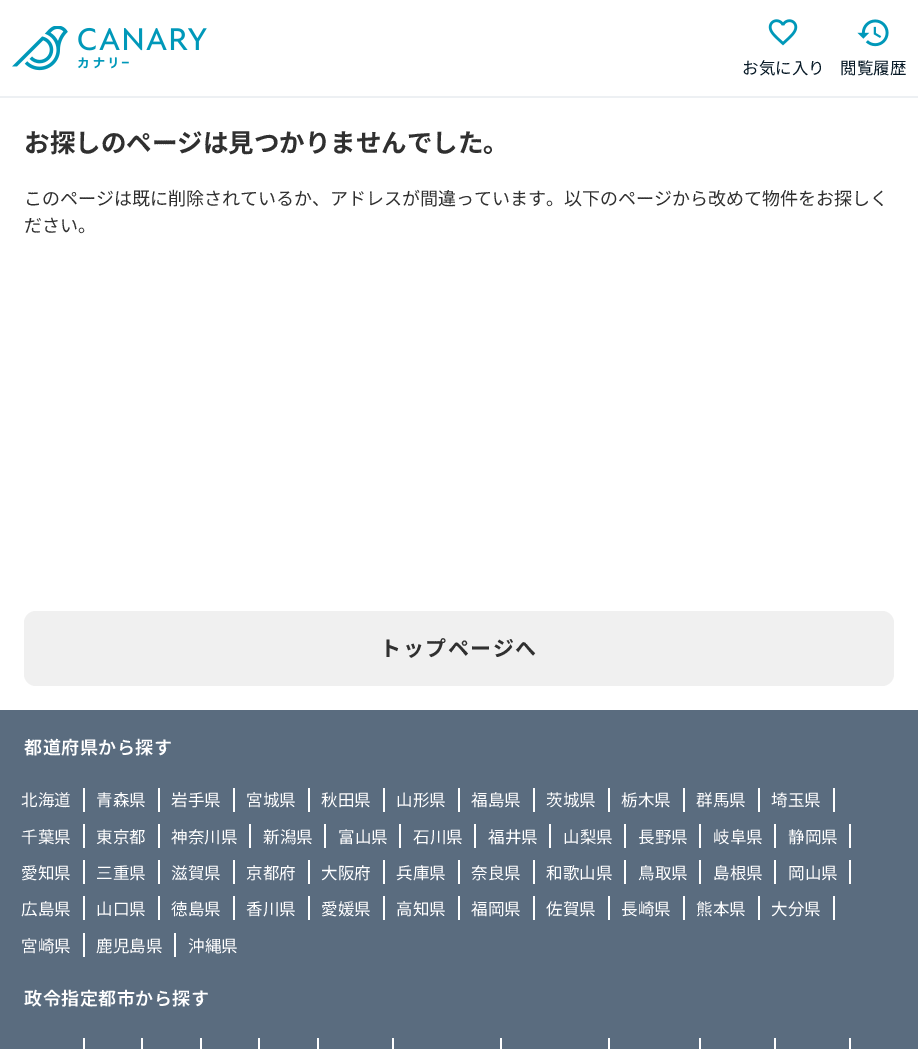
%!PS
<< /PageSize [918 1049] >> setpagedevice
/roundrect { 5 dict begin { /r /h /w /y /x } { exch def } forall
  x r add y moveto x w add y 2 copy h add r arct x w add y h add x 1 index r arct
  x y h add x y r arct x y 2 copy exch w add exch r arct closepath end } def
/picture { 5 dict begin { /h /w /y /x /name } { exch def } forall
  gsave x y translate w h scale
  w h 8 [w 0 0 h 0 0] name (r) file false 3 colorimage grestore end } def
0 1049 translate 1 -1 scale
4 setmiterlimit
1 setgray
0 0 918 1049 rectfill
0.929 0.941 0.953 setrgbcolor
0 96 918 2 rectfill
(img1.rgb) 12 26 195 45 picture
(img2.rgb) 768 19 30 27 picture
/NotoSansJP-Regular [16.5 0 0 -16.5 0 0] selectfont
0.031 0.102 0.153 setrgbcolor
742 74 moveto (お気に入り) show
(img3.rgb) 857 19 32 28 picture
840 74 moveto (閲覧履歴) show
/NotoSansJP-Bold [25.5 0 0 -25.5 0 0] selectfont
0.188 setgray
24 152 moveto (お探しのページは見つかりませんでした。) show
/NotoSansJP-Regular [18 0 0 -18 0 0] selectfont
24 205 moveto (このページは既に削除されているか、アドレスが間違っています。以下のページから改めて物件をお探しく) show
24 232 moveto (ださい。) show
0.941 setgray
24 611 870 75 12 roundrect fill
/NotoSansJP-Bold [21 0 0 -21 0 0] selectfont
0.188 setgray
380 656 moveto 1.5 0 (トップページへ) ashow
0.353 0.424 0.498 setrgbcolor
0 710 918 339 rectfill
/NotoSansJP-SemiBold [18 0 0 -18 0 0] selectfont
1 setgray
24 754 moveto 0.5 0 (都道府県から探す) ashow
/NotoSansJP-Regular [16.5 0 0 -16.5 0 0] selectfont
21 806 moveto (北海道) show
83 788 2 24 rectfill
96 806 moveto (青森県) show
158 788 2 24 rectfill
171 806 moveto (岩手県) show
233 788 2 24 rectfill
246 806 moveto (宮城県) show
308 788 2 24 rectfill
321 806 moveto (秋田県) show
383 788 2 24 rectfill
396 806 moveto (山形県) show
458 788 2 24 rectfill
471 806 moveto (福島県) show
533 788 2 24 rectfill
546 806 moveto (茨城県) show
608 788 2 24 rectfill
621 806 moveto (栃木県) show
683 788 2 24 rectfill
696 806 moveto (群馬県) show
758 788 2 24 rectfill
771 806 moveto (埼玉県) show
833 788 2 24 rectfill
21 843 moveto (千葉県) show
83 824 2 24 rectfill
96 843 moveto (東京都) show
158 824 2 24 rectfill
171 843 moveto (神奈川県) show
249 824 2 24 rectfill
263 843 moveto (新潟県) show
324 824 2 24 rectfill
338 843 moveto (富山県) show
399 824 2 24 rectfill
413 843 moveto (石川県) show
474 824 2 24 rectfill
488 843 moveto (福井県) show
549 824 2 24 rectfill
563 843 moveto (山梨県) show
624 824 2 24 rectfill
638 843 moveto (長野県) show
699 824 2 24 rectfill
713 843 moveto (岐阜県) show
774 824 2 24 rectfill
788 843 moveto (静岡県) show
849 824 2 24 rectfill
21 879 moveto (愛知県) show
83 860 2 24 rectfill
96 879 moveto (三重県) show
158 860 2 24 rectfill
171 879 moveto (滋賀県) show
233 860 2 24 rectfill
246 879 moveto (京都府) show
308 860 2 24 rectfill
321 879 moveto (大阪府) show
383 860 2 24 rectfill
396 879 moveto (兵庫県) show
458 860 2 24 rectfill
471 879 moveto (奈良県) show
533 860 2 24 rectfill
546 879 moveto (和歌山県) show
624 860 2 24 rectfill
638 879 moveto (鳥取県) show
699 860 2 24 rectfill
713 879 moveto (島根県) show
774 860 2 24 rectfill
788 879 moveto (岡山県) show
849 860 2 24 rectfill
21 915 moveto (広島県) show
83 896 2 24 rectfill
96 915 moveto (山口県) show
158 896 2 24 rectfill
171 915 moveto (徳島県) show
233 896 2 24 rectfill
246 915 moveto (香川県) show
308 896 2 24 rectfill
321 915 moveto (愛媛県) show
383 896 2 24 rectfill
396 915 moveto (高知県) show
458 896 2 24 rectfill
471 915 moveto (福岡県) show
533 896 2 24 rectfill
546 915 moveto (佐賀県) show
608 896 2 24 rectfill
621 915 moveto (長崎県) show
683 896 2 24 rectfill
696 915 moveto (熊本県) show
758 896 2 24 rectfill
771 915 moveto (大分県) show
833 896 2 24 rectfill
21 952 moveto (宮崎県) show
83 933 2 24 rectfill
96 952 moveto (鹿児島県) show
174 933 2 24 rectfill
188 952 moveto (沖縄県) show
/NotoSansJP-SemiBold [18 0 0 -18 0 0] selectfont
24 1005 moveto 0.5 0 (政令指定都市から探す) ashow
83 1038 2 11 rectfill
141 1038 2 11 rectfill
200 1038 2 11 rectfill
258 1038 2 11 rectfill
317 1038 2 11 rectfill
392 1038 2 11 rectfill
500 1038 2 11 rectfill
608 1038 2 11 rectfill
699 1038 2 11 rectfill
774 1038 2 11 rectfill
849 1038 2 11 rectfill
showpage
